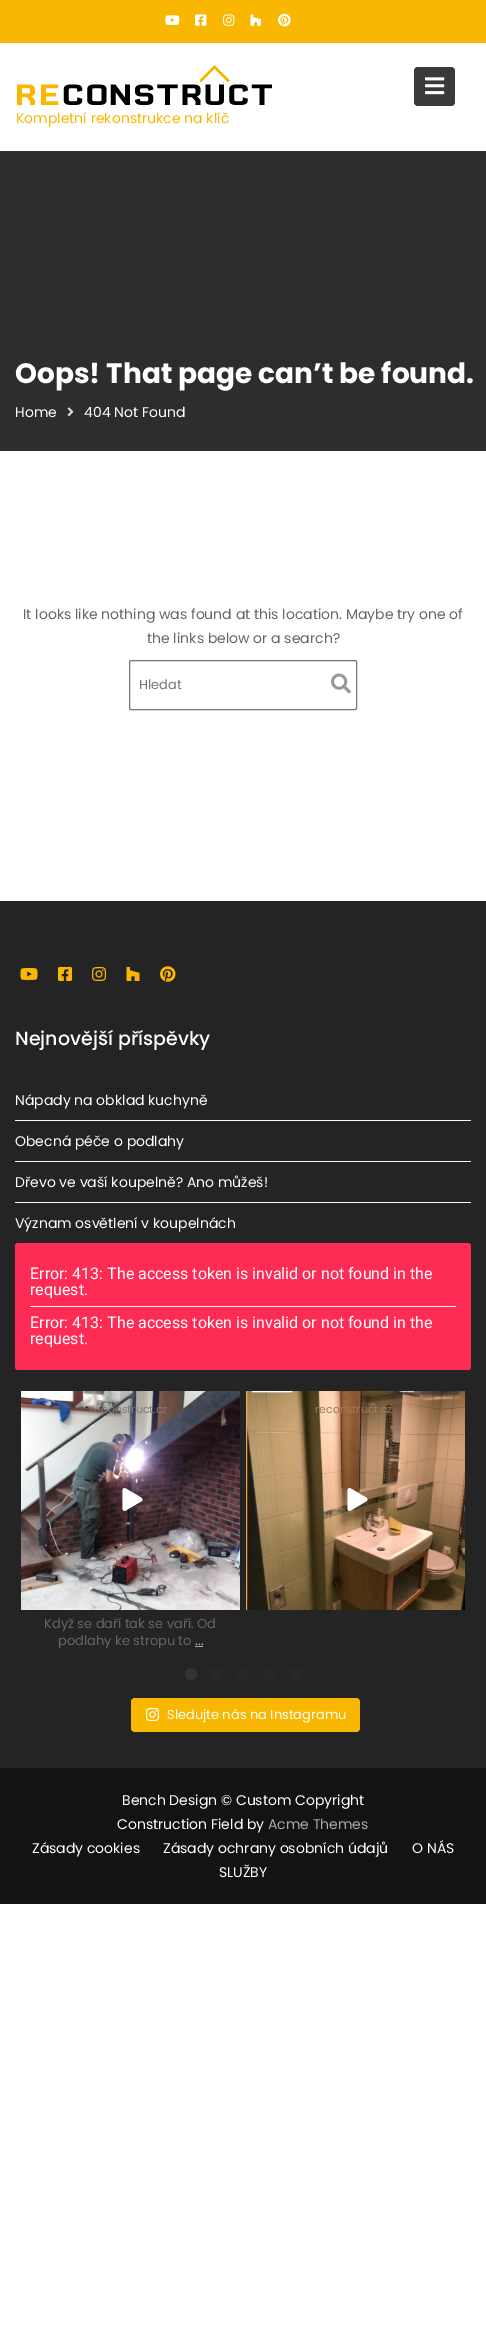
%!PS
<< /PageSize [486 2351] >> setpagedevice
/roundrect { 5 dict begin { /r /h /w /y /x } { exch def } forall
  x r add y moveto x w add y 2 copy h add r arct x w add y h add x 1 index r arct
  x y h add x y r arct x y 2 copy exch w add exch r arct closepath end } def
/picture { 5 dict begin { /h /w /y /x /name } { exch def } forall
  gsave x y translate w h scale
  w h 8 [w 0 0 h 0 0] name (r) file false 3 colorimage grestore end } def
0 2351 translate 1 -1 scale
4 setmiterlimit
1 setgray
0 0 486 2351 rectfill
0.98 0.718 0.008 setrgbcolor
0 0 486 43 rectfill
(img1.rgb) 165 15 15 10 picture
(img2.rgb) 195 14 12 12 picture
(img3.rgb) 223 14 12 12 picture
(img4.rgb) 250 14 11 12 picture
(img5.rgb) 278 13 13 14 picture
(img6.rgb) 17 65 255 40 picture
0.227 setgray
414 67 41 39 4 roundrect fill
(img7.rgb) 425 77 20 18 picture
/Poppins-Regular [14 0 0 -14 0 0] selectfont
0.98 0.718 0.008 setrgbcolor
16 123 moveto (Kompletní rekonstrukce na klíč) show
0.176 setgray
0 151 486 300 rectfill
/Poppins-Bold [28 0 0 -28 0 0] selectfont
1 setgray
15 383 moveto (Oops! That page can’t be found.) show
/Poppins-Regular [14 0 0 -14 0 0] selectfont
15 417 moveto (Home) show
(img8.rgb) 67 407 7 10 picture
84 417 moveto (404 Not Found) show
0.4 setgray
23 619 moveto (It looks like nothing was found at this location. Maybe try one of) show
147 643 moveto (the links below or a search?) show
0.463 setgray
129.5 660.5 227 49 1.5 roundrect stroke
/Poppins-Regular [13 0 0 -13 0 0] selectfont
0.459 setgray
139 689 moveto (Hledat) show
(img9.rgb) 331 673 20 21 picture
0.141 setgray
0 901 486 867 rectfill
(img10.rgb) 20 968 18 12 picture
(img11.rgb) 58 967 14 14 picture
(img12.rgb) 92 967 15 14 picture
(img13.rgb) 126 967 14 14 picture
(img14.rgb) 160 966 16 16 picture
/Poppins-Medium [19 0 0 -19 0 0] selectfont
1 setgray
15 1045 moveto (Nejnovější příspěvky) show
0.98 setgray
15 1120 456 1 rectfill
/Poppins-Regular [14 0 0 -14 0 0] selectfont
1 setgray
15 1105 moveto (Nápady na obklad kuchyně) show
0.98 setgray
15 1161 456 1 rectfill
1 setgray
15 1146 moveto (Obecná péče o podlahy) show
0.98 setgray
15 1202 456 1 rectfill
1 setgray
15 1187 moveto (Dřevo ve vaší koupelně? Ano můžeš!) show
15 1228 moveto (Význam osvětlení v koupelnách) show
0.996 0.173 0.333 setrgbcolor
15 1243 456 127 3 roundrect fill
0.98 setgray
30 1306 426 1 rectfill
/Roboto-Regular [16 0 0 -16 0 0] selectfont
1 setgray
30 1279 moveto (Error: 413: The access token is invalid or not found in the) show
30 1295 moveto (request.) show
30 1328 moveto (Error: 413: The access token is invalid or not found in the) show
30 1344 moveto (request.) show
(img15.rgb) 21 1391 219 219 picture
/Poppins-Regular [11 0 0 -11 0 0] selectfont
0.525 0.49 0.486 setrgbcolor
90 1413 moveto (reconstruct.cz) show
(img16.rgb) 122 1488 21 23 picture
/Poppins-Regular [13 0 0 -13 0 0] selectfont
0.4 setgray
44 1628 moveto (Když se daří tak se vaří. Od) show
58 1645 moveto (podlahy ke stropu to) show
/Poppins-Regular [14 0 0 -14 0 0] selectfont
0.667 setgray
195 1645 moveto (...) show
195 1646 8 1 rectfill
(img17.rgb) 246 1391 219 219 picture
/Poppins-Regular [11 0 0 -11 0 0] selectfont
0.62 0.478 0.353 setrgbcolor
315 1413 moveto (reconstruct.cz) show
(img18.rgb) 347 1488 21 23 picture
0.2 setgray
newpath 191 1674 6 0 360 arc closepath fill
0.157 setgray
newpath 217 1674 6 0 360 arc closepath fill
newpath 243 1674 6 0 360 arc closepath fill
newpath 269 1674 6 0 360 arc closepath fill
newpath 295 1674 6 0 360 arc closepath fill
0.98 0.718 0.008 setrgbcolor
131 1698 229 34 4 roundrect fill
(img19.rgb) 146 1708 14 13 picture
/Poppins-Regular [13 0 0 -13 0 0] selectfont
1 setgray
167 1719 moveto (Sledujte nás na Instagramu) show
0.075 setgray
0 1768 486 136 rectfill
/Poppins-Regular [14 0 0 -14 0 0] selectfont
1 setgray
122 1805 moveto (Bench Design © Custom Copyright) show
117 1829 moveto (Construction Field by) show
0.667 setgray
268 1829 moveto (Acme Themes) show
1 setgray
32 1853 moveto (Zásady cookies) show
163 1853 moveto (Zásady ochrany osobních údajů) show
412 1853 moveto (O NÁS) show
219 1877 moveto (SLUŽBY) show
showpage
